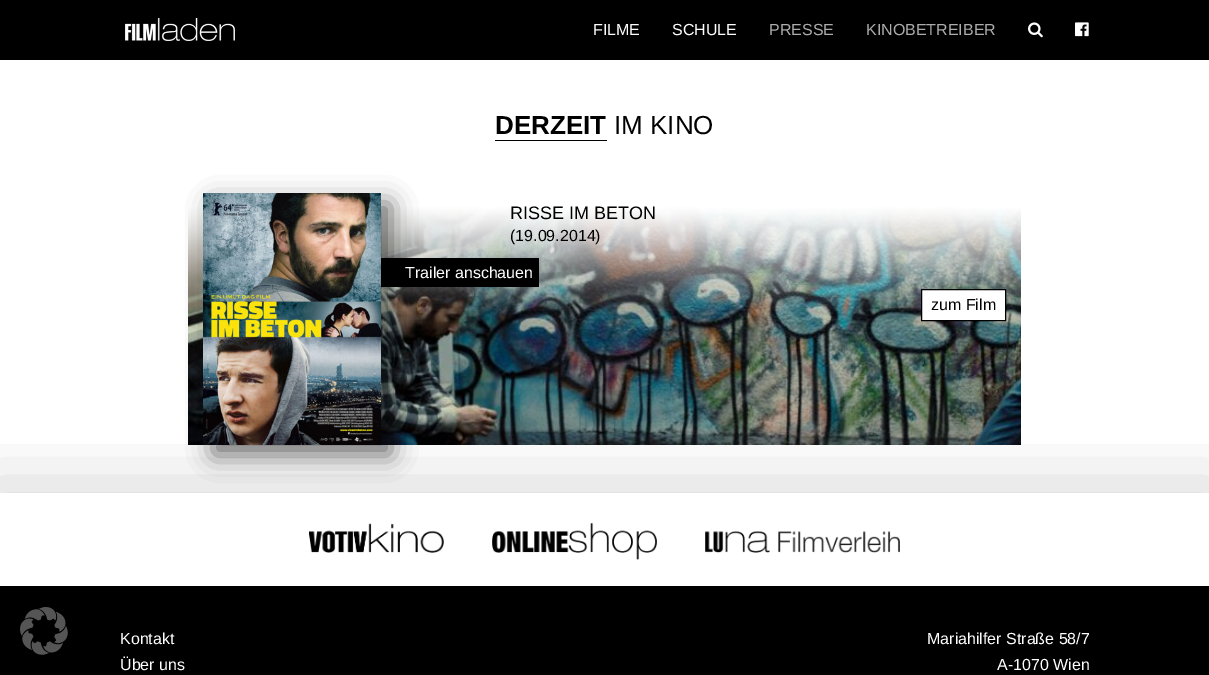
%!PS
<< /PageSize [1209 675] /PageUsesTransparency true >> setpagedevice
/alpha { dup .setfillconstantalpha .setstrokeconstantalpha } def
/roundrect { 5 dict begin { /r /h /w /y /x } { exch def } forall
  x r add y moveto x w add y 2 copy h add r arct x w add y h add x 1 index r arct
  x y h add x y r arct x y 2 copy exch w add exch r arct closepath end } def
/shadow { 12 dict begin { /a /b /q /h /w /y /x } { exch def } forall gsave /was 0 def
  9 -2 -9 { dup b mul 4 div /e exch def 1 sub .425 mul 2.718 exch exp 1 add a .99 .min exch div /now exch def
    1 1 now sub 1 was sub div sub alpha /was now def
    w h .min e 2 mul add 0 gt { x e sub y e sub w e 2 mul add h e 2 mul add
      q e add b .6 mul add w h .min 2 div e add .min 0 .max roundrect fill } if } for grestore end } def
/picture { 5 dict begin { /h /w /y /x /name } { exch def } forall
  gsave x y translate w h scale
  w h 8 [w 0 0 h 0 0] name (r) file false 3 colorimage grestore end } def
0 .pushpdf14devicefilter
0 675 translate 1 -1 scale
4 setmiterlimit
1 setgray
0 0 1209 675 rectfill
0 setgray
0 0 1209 60 rectfill
(img1.rgb) 125 18 110 23 picture
/LiberationSans-Regular [16 0 0 -16 0 0] selectfont
1 setgray
593 35 moveto (FILME) show
672 35 moveto (SCHULE) show
0.675 setgray
769 35 moveto (PRESSE) show
866 35 moveto (KINOBETREIBER) show
(img2.rgb) 1028 22 15 16 picture
(img3.rgb) 1075 22 14 15 picture
gsave
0 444 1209 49 rectclip
0 setgray
-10 483 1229 113 0 35 0.15 shadow
grestore
0 setgray
0 586 1209 89 rectfill
(img4.rgb) 20 607 48 48 picture
/LiberationSans-Bold [26 0 0 -26 0 0] selectfont
495 134 moveto (DERZEIT) show
495 140 112 1 rectfill
/LiberationSans-Regular [26 0 0 -26 0 0] selectfont
614 134 moveto (IM KINO) show
(img5.rgb) 188 207 833 238 picture
(img7.rgb) 188 193 833 118 picture
213 203 178 252 0 12.5 0.55 shadow
(img6.rgb) 203 193 178 252 picture
/LiberationSans-Regular [18 0 0 -18 0 0] selectfont
510 219 moveto (RISSE IM BETON) show
/LiberationSans-Regular [16 0 0 -16 0 0] selectfont
510 241 moveto (\(19.09.2014\)) show
381 258 158 29 rectfill
1 setgray
405 278 moveto (Trailer anschauen) show
newpath 921.5 289.5 moveto 1005.5 289.5 lineto 1005.5 320.5 lineto 921.5 320.5 lineto closepath gsave fill grestore
0 setgray
stroke
931 310 moveto (zum Film) show
(img8.rgb) 309 523 135 30 picture
(img9.rgb) 492 523 165 37 picture
(img10.rgb) 705 531 195 22 picture
1 setgray
120 644 moveto (Kontakt) show
120 670 moveto (Über uns) show
927 644 moveto (Mariahilfer Straße 58/7) show
997 670 moveto (A-1070 Wien) show
.poppdf14devicefilter showpage
